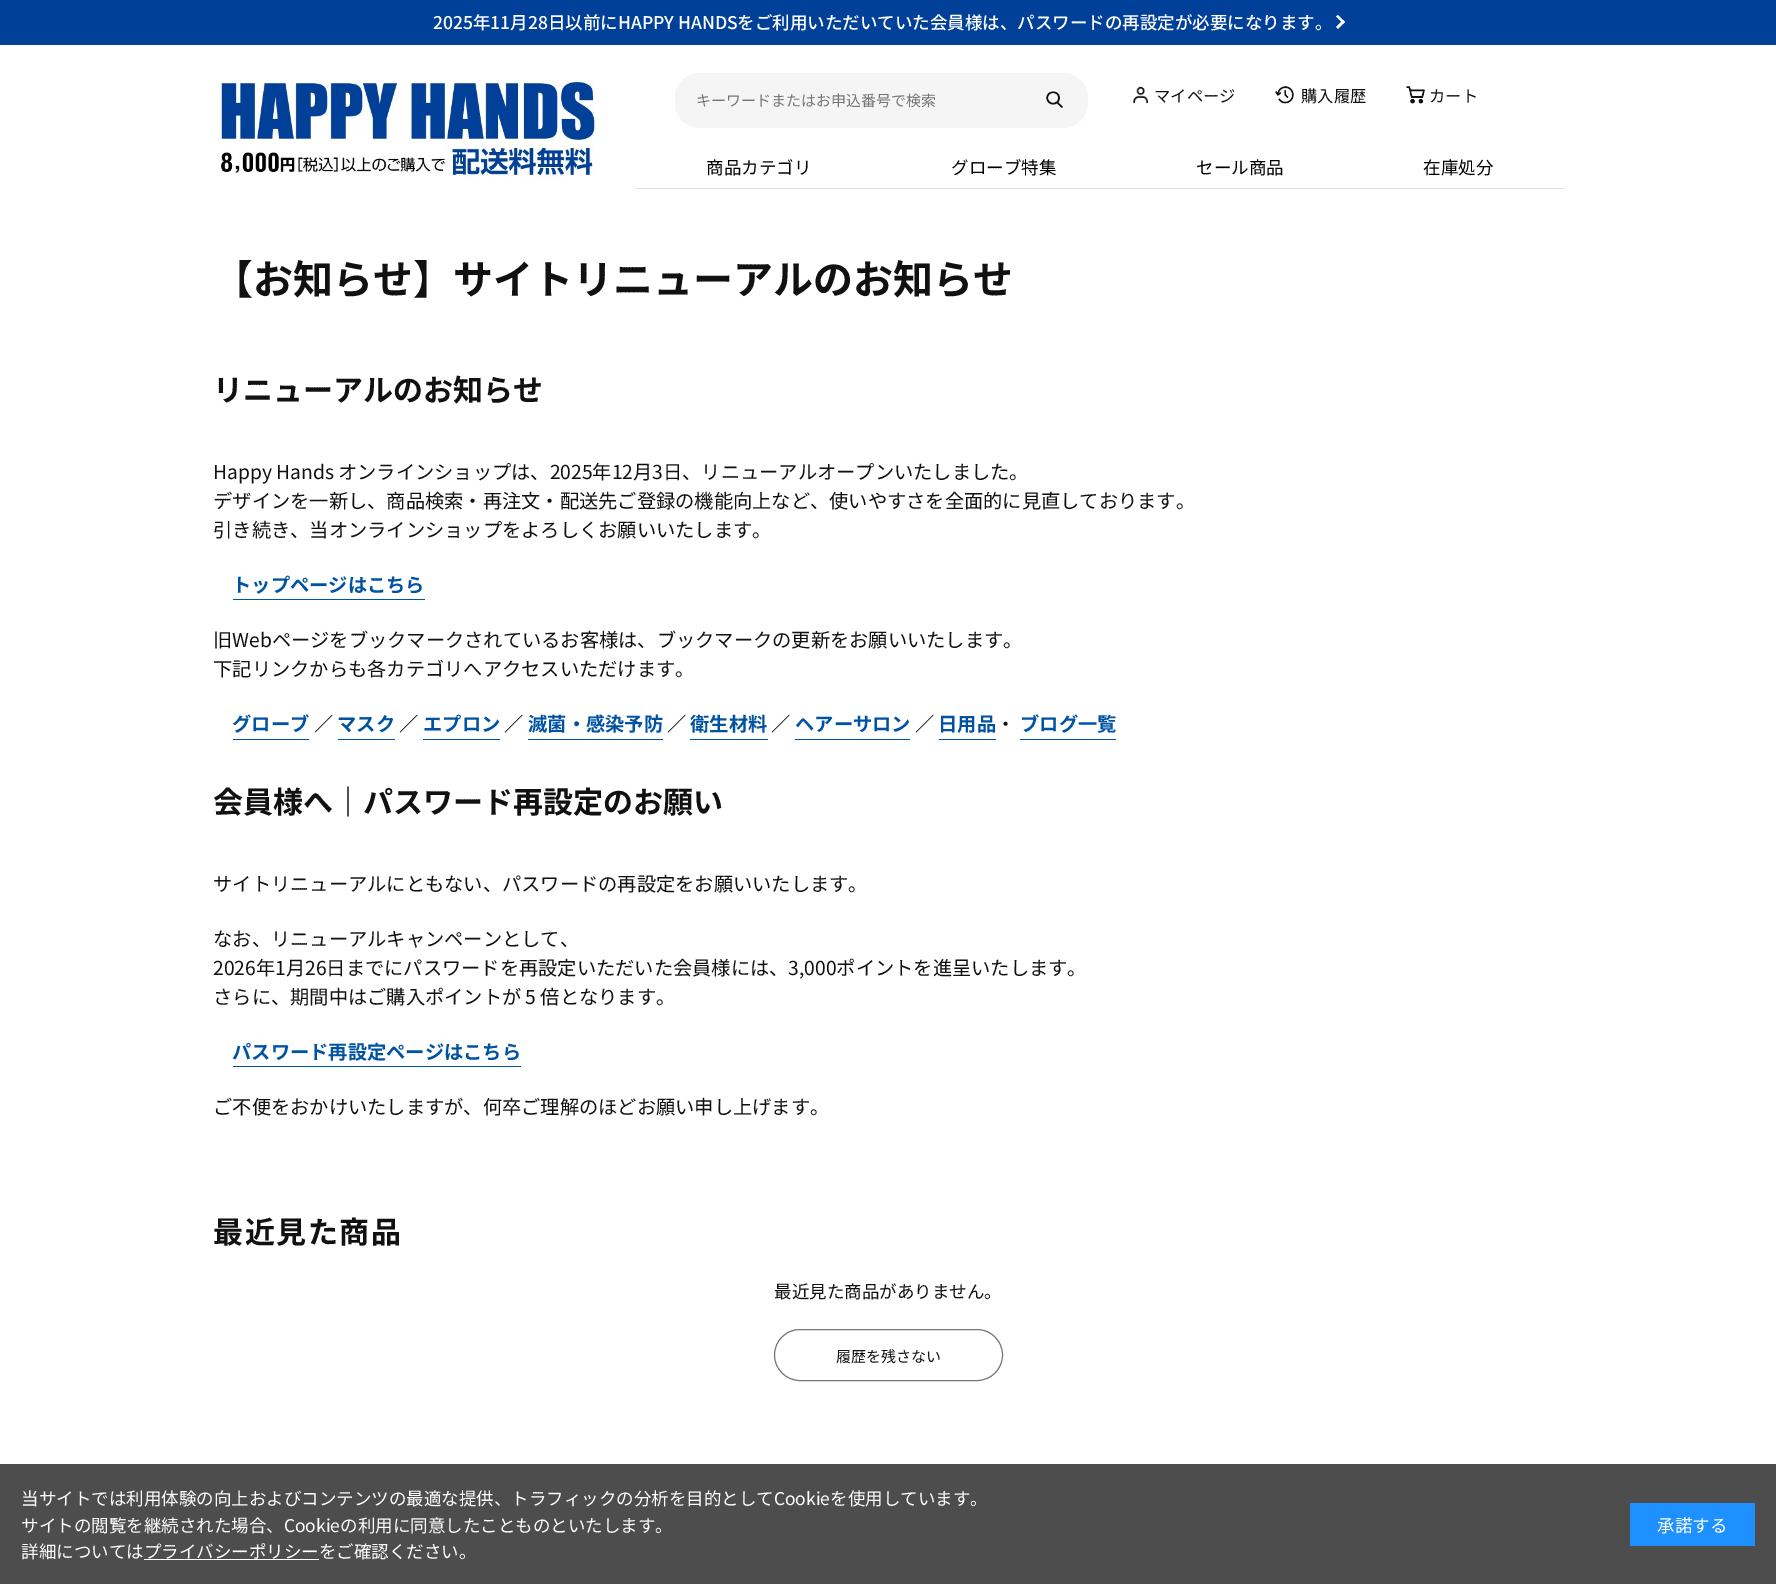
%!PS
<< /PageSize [1776 1584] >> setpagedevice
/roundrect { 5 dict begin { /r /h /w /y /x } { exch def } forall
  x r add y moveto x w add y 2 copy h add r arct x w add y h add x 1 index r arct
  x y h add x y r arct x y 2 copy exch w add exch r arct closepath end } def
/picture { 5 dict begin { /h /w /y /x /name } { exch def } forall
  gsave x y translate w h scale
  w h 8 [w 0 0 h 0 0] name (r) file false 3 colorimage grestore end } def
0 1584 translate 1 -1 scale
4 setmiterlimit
1 setgray
0 0 1776 1584 rectfill
0 0.251 0.596 setrgbcolor
0 0 1776 45 rectfill
/NotoSansJP-Medium [17.5 0 0 -17.5 0 0] selectfont
1 setgray
433 29 moveto (2025年11月28日以前にHAPPY HANDSをご利用いただいていた会員様は、パスワードの再設定が必要になります。) show
newpath 1338 15 moveto 1345 22 lineto 1343 23.5 lineto 1336 16.5 lineto closepath fill
newpath 1343 20 moveto 1345 22 lineto 1338 29 lineto 1336 27 lineto closepath fill
(img1.rgb) 214 80 383 100 picture
0.961 setgray
675 73 413 55 25 roundrect fill
675 88 368 25 5 roundrect fill
/NotoSansJP-Regular [15 0 0 -15 0 0] selectfont
0.459 setgray
696 106 moveto (キーワードまたはお申込番号で検索) show
(img2.rgb) 1046 91 17 17 picture
(img3.rgb) 1133 86 15 18 picture
/NotoSansJP-Regular [16.25 0 0 -16.25 0 0] selectfont
0.067 setgray
1154 102 moveto (マイページ) show
(img4.rgb) 1275 86 19 18 picture
1301 102 moveto (購入履歴) show
(img5.rgb) 1406 86 19 18 picture
1429 102 moveto (カート) show
/NotoSansJP-Regular [17.5 0 0 -17.5 0 0] selectfont
0 setgray
706 174 moveto (商品カテゴリ) show
0.875 setgray
636 188 928 1 rectfill
0 setgray
951 174 moveto (グローブ特集) show
1196 174 moveto (セール商品) show
1423 174 moveto (在庫処分) show
/NotoSansJP-Bold [40 0 0 -40 0 0] selectfont
0.067 setgray
213 294 moveto (【お知らせ】サイトリニューアルのお知らせ) show
/NotoSansJP-Bold [30 0 0 -30 0 0] selectfont
213 401 moveto (リニューアルのお知らせ) show
/NotoSansJP-Regular [19.25 0 0 -19.25 0 0] selectfont
213 479 moveto (Happy Hands オンラインショップは、2025年12月3日、リニューアルオープンいたしました。) show
213 508 moveto (デザインを一新し、商品検索・再注文・配送先ご登録の機能向上など、使いやすさを全面的に見直しております。) show
213 537 moveto (引き続き、当オンラインショップをよろしくお願いいたします。) show
/NotoSansJP-Bold [19.25 0 0 -19.25 0 0] selectfont
0 0.322 0.639 setrgbcolor
232 592 moveto (トップページはこちら) show
233 599 192 1 rectfill
/NotoSansJP-Regular [19.25 0 0 -19.25 0 0] selectfont
0.067 setgray
213 647 moveto (旧Webページをブックマークされているお客様は、ブックマークの更新をお願いいたします。) show
213 676 moveto (下記リンクからも各カテゴリへアクセスいただけます。) show
/NotoSansJP-Bold [19.25 0 0 -19.25 0 0] selectfont
0 0.322 0.639 setrgbcolor
232 731 moveto (グローブ) show
233 739 76 1 rectfill
/NotoSansJP-Regular [19.25 0 0 -19.25 0 0] selectfont
0.067 setgray
314 731 moveto (／) show
/NotoSansJP-Bold [19.25 0 0 -19.25 0 0] selectfont
0 0.322 0.639 setrgbcolor
337 731 moveto (マスク) show
338 739 57 1 rectfill
/NotoSansJP-Regular [19.25 0 0 -19.25 0 0] selectfont
0.067 setgray
399 731 moveto (／) show
/NotoSansJP-Bold [19.25 0 0 -19.25 0 0] selectfont
0 0.322 0.639 setrgbcolor
423 731 moveto (エプロン) show
423 739 77 1 rectfill
/NotoSansJP-Regular [19.25 0 0 -19.25 0 0] selectfont
0.067 setgray
504 731 moveto (／) show
/NotoSansJP-Bold [19.25 0 0 -19.25 0 0] selectfont
0 0.322 0.639 setrgbcolor
528 731 moveto (滅菌・感染予防) show
528 739 135 1 rectfill
/NotoSansJP-Regular [19.25 0 0 -19.25 0 0] selectfont
0.067 setgray
667 731 moveto (／) show
/NotoSansJP-Bold [19.25 0 0 -19.25 0 0] selectfont
0 0.322 0.639 setrgbcolor
690 731 moveto (衛生材料) show
690 739 78 1 rectfill
/NotoSansJP-Regular [19.25 0 0 -19.25 0 0] selectfont
0.067 setgray
771 731 moveto (／) show
/NotoSansJP-Bold [19.25 0 0 -19.25 0 0] selectfont
0 0.322 0.639 setrgbcolor
795 731 moveto (ヘアーサロン) show
795 739 115 1 rectfill
/NotoSansJP-Regular [19.25 0 0 -19.25 0 0] selectfont
0.067 setgray
915 731 moveto (／) show
/NotoSansJP-Bold [19.25 0 0 -19.25 0 0] selectfont
0 0.322 0.639 setrgbcolor
938 731 moveto (日用品) show
939 739 57 1 rectfill
/NotoSansJP-Regular [19.25 0 0 -19.25 0 0] selectfont
0.067 setgray
996 731 moveto (・) show
/NotoSansJP-Bold [19.25 0 0 -19.25 0 0] selectfont
0 0.322 0.639 setrgbcolor
1020 731 moveto (ブログ一覧) show
1020 739 96 1 rectfill
/NotoSansJP-Bold [30 0 0 -30 0 0] selectfont
0.067 setgray
213 813 moveto (会員様へ｜パスワード再設定のお願い) show
/NotoSansJP-Regular [19.25 0 0 -19.25 0 0] selectfont
213 891 moveto (サイトリニューアルにともない、パスワードの再設定をお願いいたします。) show
213 946 moveto (なお、リニューアルキャンペーンとして、) show
213 975 moveto (2026年1月26日までにパスワードを再設定いただいた会員様には、3,000ポイントを進呈いたします。) show
213 1004 moveto (さらに、期間中はご購入ポイントが 5 倍となります。) show
/NotoSansJP-Bold [19.25 0 0 -19.25 0 0] selectfont
0 0.322 0.639 setrgbcolor
232 1059 moveto (パスワード再設定ページはこちら) show
233 1066 288 1 rectfill
/NotoSansJP-Regular [19.25 0 0 -19.25 0 0] selectfont
0.067 setgray
213 1114 moveto (ご不便をおかけいたしますが、何卒ご理解のほどお願い申し上げます。) show
/NotoSansJP-Bold [30 0 0 -30 0 0] selectfont
213 1243 moveto 1.5 0 (最近見た商品) ashow
/NotoSansJP-Regular [17.5 0 0 -17.5 0 0] selectfont
774 1298 moveto (最近見た商品がありません。) show
0.463 setgray
774.5 1329.5 228 51 25.5 roundrect stroke
/NotoSansJP-Regular [15 0 0 -15 0 0] selectfont
0.067 setgray
836 1362 moveto (履歴を残さない) show
0.302 setgray
0 1464 1776 120 rectfill
/NotoSansJP-Regular [17.5 0 0 -17.5 0 0] selectfont
1 setgray
21 1505 moveto (当サイトでは利用体験の向上およびコンテンツの最適な提供、トラフィックの分析を目的としてCookieを使用しています。) show
21 1532 moveto (サイトの閲覧を継続された場合、Cookieの利用に同意したことものといたします。) show
21 1558 moveto (詳細についてはプライバシーポリシーをご確認ください。) show
144 1559 175 1 rectfill
0.118 0.565 1 setrgbcolor
1630 1503 125 43 rectfill
1 setgray
1657 1532 moveto (承諾する) show
showpage
